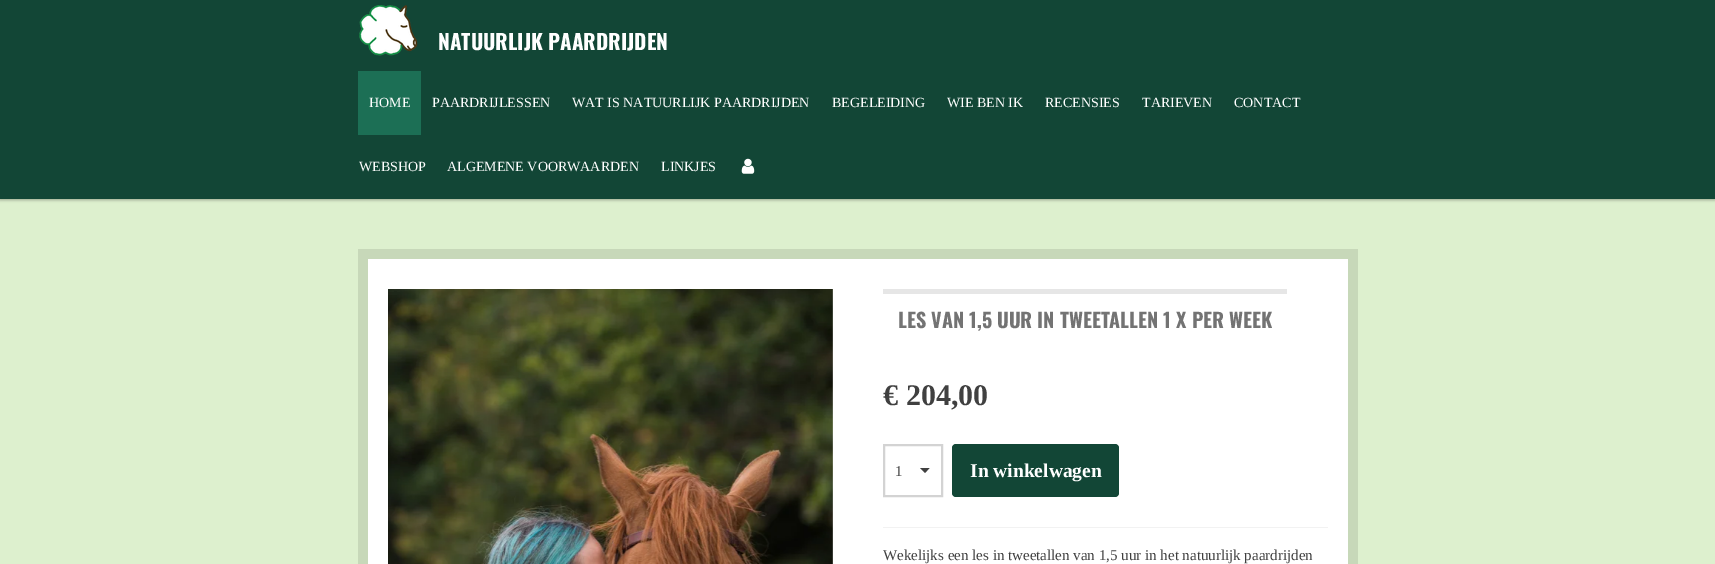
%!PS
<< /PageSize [1715 564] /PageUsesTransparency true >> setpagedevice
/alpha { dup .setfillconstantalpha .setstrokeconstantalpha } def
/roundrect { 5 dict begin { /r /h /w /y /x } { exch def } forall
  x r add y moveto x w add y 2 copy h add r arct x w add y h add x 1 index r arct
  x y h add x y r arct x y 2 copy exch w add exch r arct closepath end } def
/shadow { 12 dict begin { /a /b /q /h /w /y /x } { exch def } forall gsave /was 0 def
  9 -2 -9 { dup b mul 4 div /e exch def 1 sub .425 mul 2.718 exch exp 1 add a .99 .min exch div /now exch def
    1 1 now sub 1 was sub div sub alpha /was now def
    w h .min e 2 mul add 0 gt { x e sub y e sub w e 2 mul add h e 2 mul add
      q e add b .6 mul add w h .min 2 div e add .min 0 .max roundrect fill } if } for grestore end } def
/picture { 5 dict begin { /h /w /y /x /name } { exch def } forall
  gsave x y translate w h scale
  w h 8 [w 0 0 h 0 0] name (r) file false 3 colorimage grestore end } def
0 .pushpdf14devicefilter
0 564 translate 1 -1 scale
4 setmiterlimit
0.867 0.941 0.808 setrgbcolor
0 0 1715 564 rectfill
0 setgray
0 1 1715 199 0 1.5 0.3 shadow
0.071 0.275 0.212 setrgbcolor
0 0 1715 199 rectfill
(img1.rgb) 359 5 59 51 picture
/Oswald-Bold [21 0 0 -21 0 0] selectfont
1 setgray
438 50 moveto (NATUURLIJK PAARDRIJDEN) show
0.11 0.435 0.333 setrgbcolor
358 71 63 64 rectfill
/LiberationSerif-Regular [14 0 0 -14 0 0] selectfont
1 setgray
369 107 moveto (HOME) show
432 107 moveto (PAARDRIJLESSEN) show
572 107 moveto (WAT IS NATUURLIJK PAARDRIJDEN) show
832 107 moveto (BEGELEIDING) show
947 107 moveto (WIE BEN IK) show
1045 107 moveto (RECENSIES) show
1142 107 moveto (TARIEVEN) show
1234 107 moveto (CONTACT) show
359 171 moveto (WEBSHOP) show
447 171 moveto (ALGEMENE VOORWAARDEN) show
661 171 moveto (LINKJES) show
(img2.rgb) 741 158 14 16 picture
0.78 0.847 0.725 setrgbcolor
358 249 1000 315 rectfill
1 setgray
368 259 980 305 rectfill
(img3.rgb) 388 289 445 275 picture
0.902 setgray
883 289 404 5 rectfill
/Oswald-Bold [20 0 0 -20 0 0] selectfont
0.451 setgray
898 328 moveto (LES VAN 1,5 UUR IN TWEETALLEN 1 X PER WEEK) show
/LiberationSerif-Bold [30 0 0 -30 0 0] selectfont
0.251 setgray
883 405 moveto (€ 204,00) show
newpath 925 473 moveto 920 468 lineto 929.5 468 lineto closepath fill
0.827 setgray
2 setlinewidth
884 445 58 51 rectstroke
/LiberationSerif-Regular [15 0 0 -15 0 0] selectfont
0.251 setgray
895 476 moveto (1) show
0.071 0.275 0.212 setrgbcolor
952 444 167 53 4 roundrect fill
/LiberationSerif-Bold [19.5 0 0 -19.5 0 0] selectfont
1 setgray
970 477 moveto (In winkelwagen) show
0.949 setgray
883 527 445 1 rectfill
/LiberationSerif-Regular [15 0 0 -15 0 0] selectfont
0.251 setgray
883 560 moveto (Wekelijks een les in tweetallen van 1,5 uur in het natuurlijk paardrijden) show
.poppdf14devicefilter showpage
